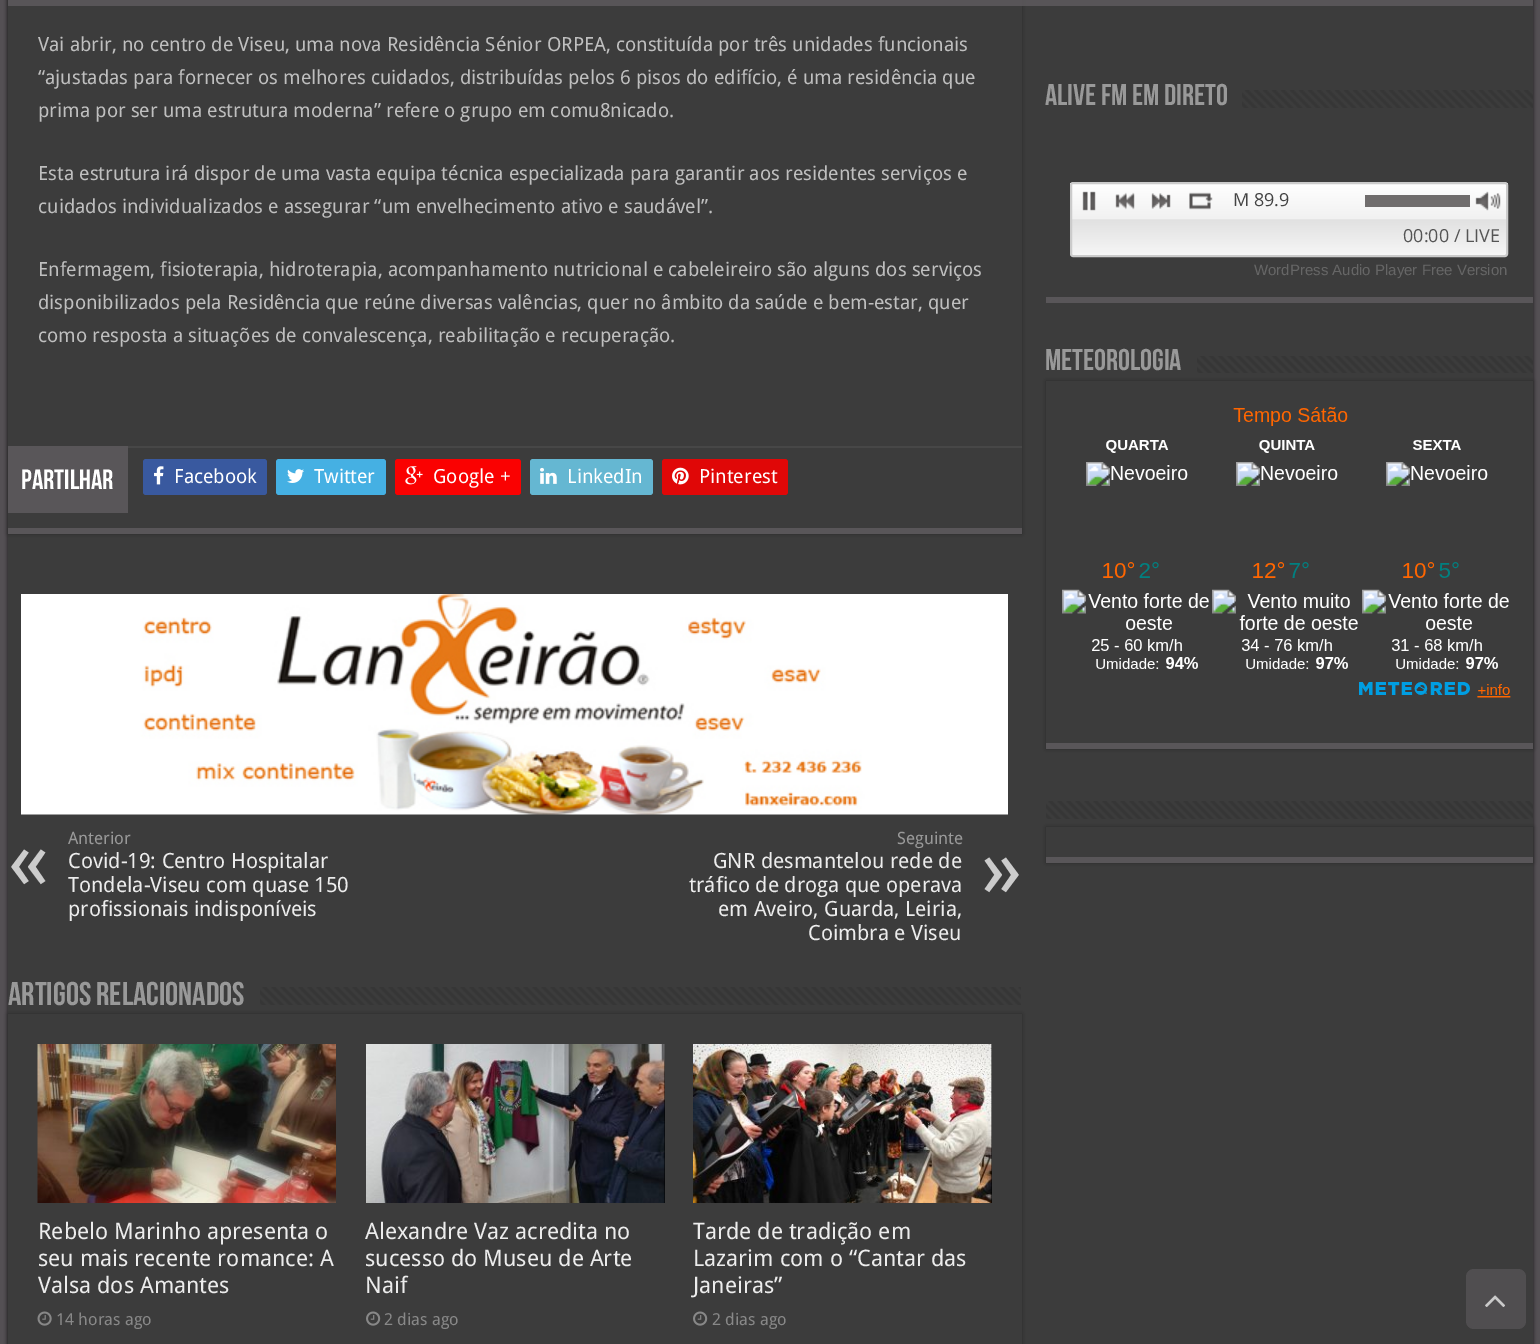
%!PS
<< /PageSize [1540 1344] /PageUsesTransparency true >> setpagedevice
/alpha { dup .setfillconstantalpha .setstrokeconstantalpha } def
/roundrect { 5 dict begin { /r /h /w /y /x } { exch def } forall
  x r add y moveto x w add y 2 copy h add r arct x w add y h add x 1 index r arct
  x y h add x y r arct x y 2 copy exch w add exch r arct closepath end } def
/shadow { 12 dict begin { /a /b /q /h /w /y /x } { exch def } forall gsave /was 0 def
  9 -2 -9 { dup b mul 4 div /e exch def 1 sub .425 mul 2.718 exch exp 1 add a .99 .min exch div /now exch def
    1 1 now sub 1 was sub div sub alpha /was now def
    w h .min e 2 mul add 0 gt { x e sub y e sub w e 2 mul add h e 2 mul add
      q e add b .6 mul add w h .min 2 div e add .min 0 .max roundrect fill } if } for grestore end } def
/picture { 5 dict begin { /h /w /y /x /name } { exch def } forall
  gsave x y translate w h scale
  w h 8 [w 0 0 h 0 0] name (r) file false 3 colorimage grestore end } def
0 .pushpdf14devicefilter
0 1344 translate 1 -1 scale
4 setmiterlimit
0.329 0.314 0.329 setrgbcolor
0 0 1540 1344 rectfill
0.078 setgray
8 -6 1525 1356 0 2 1 shadow
0.235 setgray
8 0 1525 1344 rectfill
0.165 setgray
8 -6 1014 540 0 2 1 shadow
0.235 setgray
8 0 1014 528 rectfill
0.95 alpha
0.349 0.337 0.349 setrgbcolor
8 0 1525 6 rectfill
1 alpha
8 528 1014 6 rectfill
/DroidSans-Regular [19.5 0 0 -19.5 0 0] selectfont
0.749 setgray
38 51 moveto (Vai abrir, no centro de Viseu, uma nova Residência Sénior ORPEA, constituída por três unidades funcionais) show
38 84 moveto (“ajustadas para fornecer os melhores cuidados, distribuídas pelos 6 pisos do edifício, é uma residência que) show
38 117 moveto (prima por ser uma estrutura moderna” refere o grupo em comu8nicado.) show
38 180 moveto (Esta estrutura irá dispor de uma vasta equipa técnica especializada para garantir aos residentes serviços e) show
38 213 moveto (cuidados individualizados e assegurar “um envelhecimento ativo e saudável”.) show
38 276 moveto (Enfermagem, fisioterapia, hidroterapia, acompanhamento nutricional e cabeleireiro são alguns dos serviços) show
38 309 moveto (disponibilizados pela Residência que reúne diversas valências, quer no âmbito da saúde e bem-estar, quer) show
38 342 moveto (como resposta a situações de convalescença, reabilitação e recuperação.) show
0.278 setgray
128 446 894 2 rectfill
0.349 0.337 0.349 setrgbcolor
8 446 120 67 rectfill
/BebasNeue-Bold [28 0 0 -28 0 0] selectfont
1 setgray
21 489 moveto (Partilhar) show
0.224 0.349 0.624 setrgbcolor
143 459 124 36 3 roundrect fill
(img1.rgb) 154 466 10 19 picture
/DroidSans-Regular [19.5 0 0 -19.5 0 0] selectfont
1 setgray
174 483 moveto (Facebook) show
0.271 0.69 0.89 setrgbcolor
276 459 110 36 3 roundrect fill
(img2.rgb) 287 469 17 14 picture
1 setgray
314 483 moveto (Twitter) show
0.98 0.004 0.004 setrgbcolor
395 459 126 36 3 roundrect fill
(img3.rgb) 405 466 18 19 picture
1 setgray
433 483 moveto (Google +) show
0.396 0.718 0.824 setrgbcolor
530 459 123 36 3 roundrect fill
(img4.rgb) 540 467 17 17 picture
1 setgray
567 483 moveto (LinkedIn) show
0.878 0.027 0.027 setrgbcolor
662 459 126 36 3 roundrect fill
(img5.rgb) 672 467 17 18 picture
1 setgray
699 483 moveto (Pinterest) show
(img6.rgb) 21 594 987 221 picture
/DroidSans-Regular [17 0 0 -17 0 0] selectfont
0.6 setgray
68 844 moveto (Anterior) show
/DroidSans-Regular [84 0 0 -84 0 0] selectfont
0.8 setgray
8 889 moveto («) show
/DroidSans-Regular [21 0 0 -21 0 0] selectfont
0.925 setgray
68 868 moveto (Covid-19: Centro Hospitalar) show
68 892 moveto (Tondela-Viseu com quase 150) show
68 916 moveto (profissionais indisponíveis) show
/DroidSans-Regular [17 0 0 -17 0 0] selectfont
0.6 setgray
897 844 moveto (Seguinte) show
/DroidSans-Regular [21 0 0 -21 0 0] selectfont
0.925 setgray
713 868 moveto (GNR desmantelou rede de) show
/DroidSans-Regular [84 0 0 -84 0 0] selectfont
0.8 setgray
981 897 moveto (») show
/DroidSans-Regular [21 0 0 -21 0 0] selectfont
0.925 setgray
689 892 moveto (tráfico de droga que operava) show
718 916 moveto (em Aveiro, Guarda, Leiria,) show
808 940 moveto (Coimbra e Viseu) show
/BebasNeue-Bold [33 0 0 -33 0 0] selectfont
0.6 setgray
8 1005 moveto (Artigos Relacionados) show
(img7.rgb) 260 987 761 18 picture
0.165 setgray
8 1014 1014 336 0 2 1 shadow
0.235 setgray
8 1014 1014 330 rectfill
(img8.rgb) 37 1044 299 159 picture
/DroidSans-Regular [22.75 0 0 -22.75 0 0] selectfont
0.925 setgray
38 1239 moveto (Rebelo Marinho apresenta o) show
38 1266 moveto (seu mais recente romance: A) show
38 1293 moveto (Valsa dos Amantes) show
(img9.rgb) 37 1311 15 15 picture
/DroidSans-Regular [16.5 0 0 -16.5 0 0] selectfont
0.533 setgray
56 1325 moveto (14 horas ago) show
0 setgray
664 1044 1 159 rectfill
(img10.rgb) 366 1044 299 159 picture
/DroidSans-Regular [22.75 0 0 -22.75 0 0] selectfont
0.925 setgray
365 1239 moveto (Alexandre Vaz acredita no) show
365 1266 moveto (sucesso do Museu de Arte) show
365 1293 moveto (Naif) show
(img11.rgb) 366 1311 15 15 picture
/DroidSans-Regular [16.5 0 0 -16.5 0 0] selectfont
0.533 setgray
384 1325 moveto (2 dias ago) show
0 setgray
991 1044 1 159 rectfill
(img12.rgb) 693 1044 299 159 picture
/DroidSans-Regular [22.75 0 0 -22.75 0 0] selectfont
0.925 setgray
693 1239 moveto (Tarde de tradição em) show
693 1266 moveto (Lazarim com o “Cantar das) show
693 1293 moveto (Janeiras”) show
(img11.rgb) 693 1311 15 15 picture
/DroidSans-Regular [16.5 0 0 -16.5 0 0] selectfont
0.533 setgray
712 1325 moveto (2 dias ago) show
/BebasNeue-Bold [30 0 0 -30 0 0] selectfont
0.6 setgray
1045 105 moveto (Alive FM em Direto) show
(img13.rgb) 1242 90 291 18 picture
0.349 0.337 0.349 setrgbcolor
1046 297 487 6 rectfill
gsave
1070 182 438 75 3 roundrect clip newpath
gsave newpath 1070 183 moveto 1508 183 lineto 1508 255 lineto 1070 255 lineto closepath clip newpath
<< /ShadingType 2 /ColorSpace /DeviceRGB /Coords [1289 183 1289 255] /Extend [true true] /Function << /FunctionType 3 /Domain [0 1] /Functions [<< /FunctionType 2 /Domain [0 1] /C0 [1 1 1] /C1 [0.945 0.945 0.945] /N 1 >> << /FunctionType 2 /Domain [0 1] /C0 [0.945 0.945 0.945] /C1 [0.882 0.882 0.882] /N 1 >> << /FunctionType 2 /Domain [0 1] /C0 [0.882 0.882 0.882] /C1 [0.965 0.965 0.965] /N 1 >>] /Bounds [0.5 0.51] /Encode [0 1 0 1 0 1] >> >> shfill grestore
grestore
0.796 setgray
2 setlinewidth
1071 183 436 73 2 roundrect stroke
(img14.rgb) 1082 191 14 20 picture
(img15.rgb) 1115 192 20 18 picture
(img16.rgb) 1151 193 20 16 picture
(img17.rgb) 1189 192 24 18 picture
/OpenSans-Regular [18 0 0 -18 0 0] selectfont
0.267 setgray
1233 206 moveto (M 89.9) show
0.439 0.427 0.427 setrgbcolor
1365 195 105 12 rectfill
(img18.rgb) 1475 191 26 20 picture
0.333 setgray
1403 242 moveto (00:00 / LIVE) show
/LiberationSans-Regular [15 0 0 -15 0 0] selectfont
0.4 setgray
1254 275 moveto (WordPress Audio Player Free Version) show
/BebasNeue-Bold [30 0 0 -30 0 0] selectfont
0.6 setgray
1045 370 moveto (Meteorologia) show
(img19.rgb) 1197 356 336 17 picture
0.165 setgray
1046 381 487 368 0 2 1 shadow
0.235 setgray
1046 381 487 362 rectfill
0.349 0.337 0.349 setrgbcolor
1046 743 487 6 rectfill
(img20.rgb) 1062 407 449 291 picture
(img21.rgb) 1046 801 487 18 picture
0.165 setgray
1046 827 487 36 0 2 1 shadow
0.235 setgray
1046 827 487 30 rectfill
0.349 0.337 0.349 setrgbcolor
1046 857 487 6 rectfill
0.314 0.306 0.314 setrgbcolor
1466 1269 60 60 8 roundrect fill
(img22.rgb) 1485 1295 20 12 picture
.poppdf14devicefilter showpage
